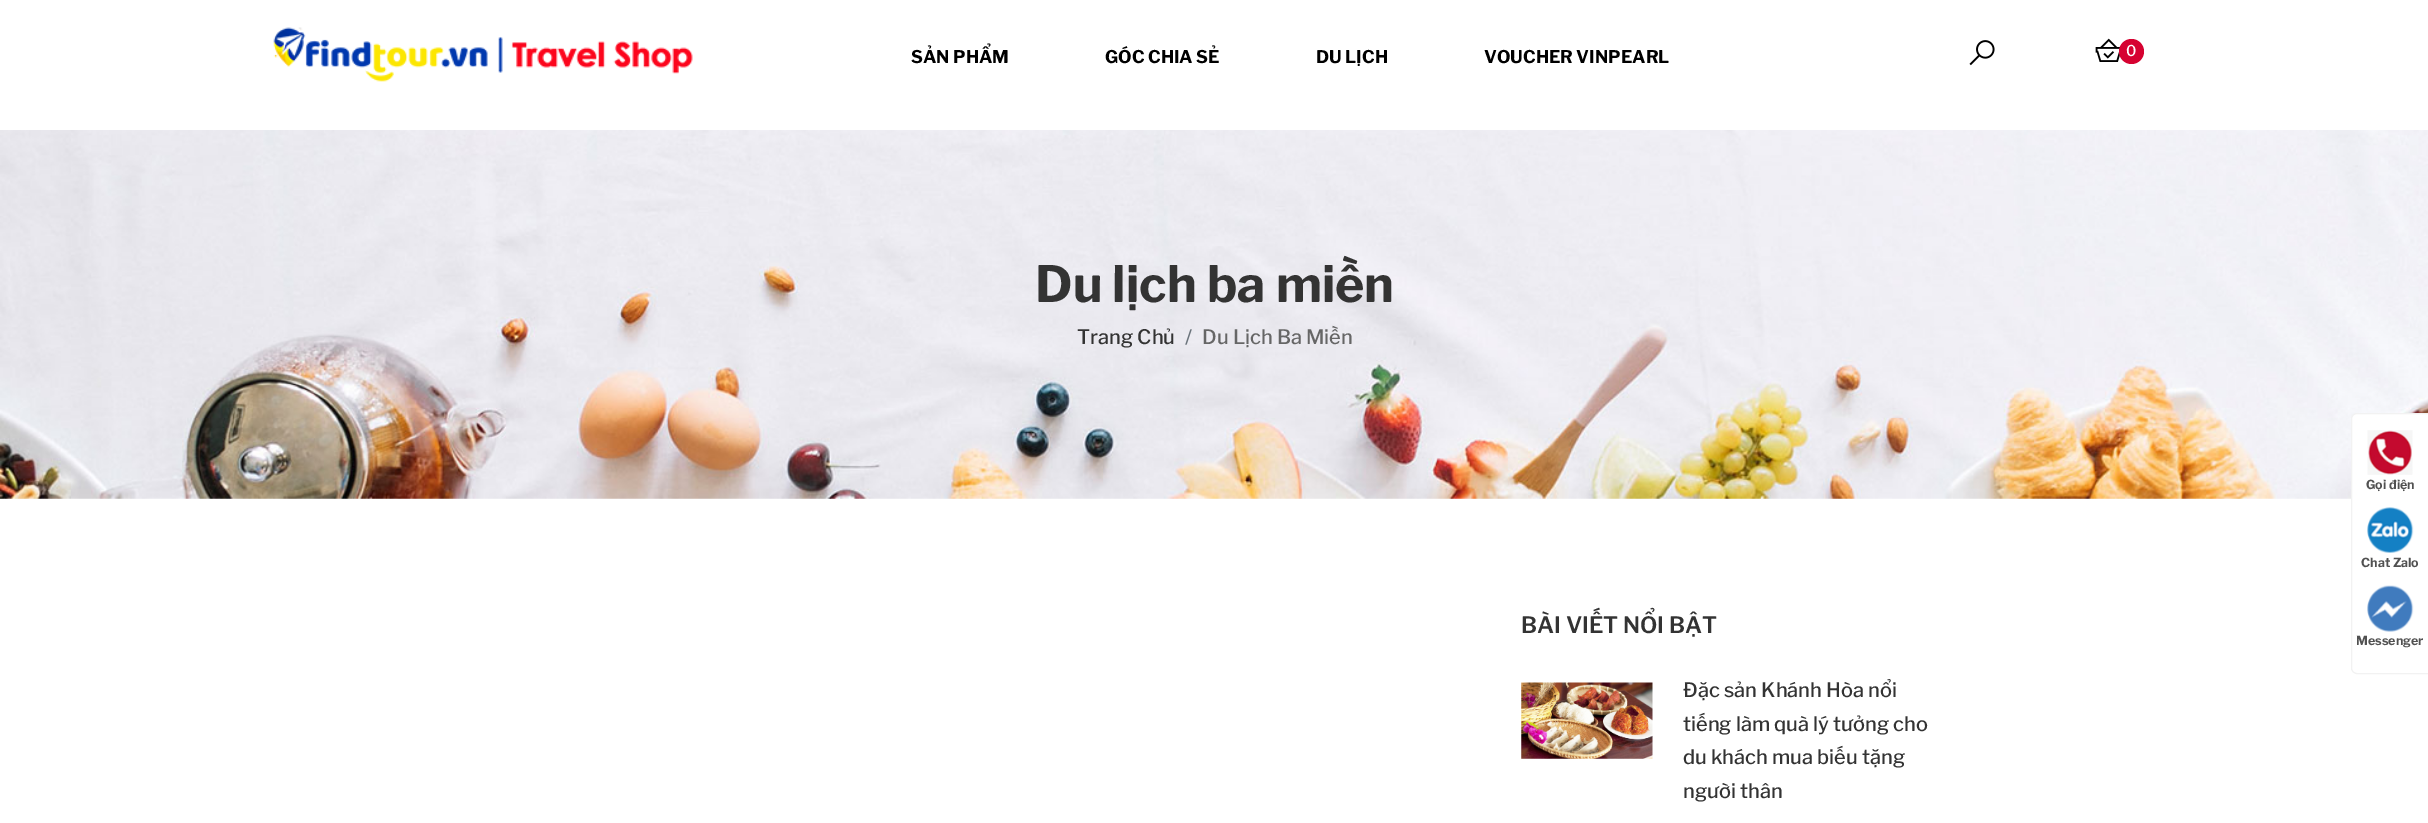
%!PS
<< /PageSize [2428 823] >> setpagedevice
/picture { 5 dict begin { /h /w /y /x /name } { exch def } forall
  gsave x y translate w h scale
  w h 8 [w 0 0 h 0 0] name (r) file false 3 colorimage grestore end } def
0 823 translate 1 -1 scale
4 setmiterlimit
1 setgray
0 0 2428 823 rectfill
(img1.rgb) 273 27 420 55 picture
/LibreFranklin-Bold [17.5 0 0 -17.5 0 0] selectfont
0 setgray
911 63 moveto (SẢN PHẨM) show
1105 63 moveto (GÓC CHIA SẺ) show
1316 63 moveto (DU LỊCH) show
1484 63 moveto (VOUCHER VINPEARL) show
(img2.rgb) 1969 40 26 26 picture
(img3.rgb) 2095 38 25 24 picture
0.839 0.008 0.192 setrgbcolor
newpath 2131.5 51.5 12.5 0 360 arc closepath fill
/LibreFranklin-Medium [15 0 0 -15 0 0] selectfont
1 setgray
2126 56 moveto (0) show
(img4.rgb) 0 130 2428 369 picture
/LibreFranklin-Bold [50 0 0 -50 0 0] selectfont
0.2 setgray
1035 302 moveto (Du lịch ba miền) show
/LibreFranklin-Medium [20 0 0 -20 0 0] selectfont
1077 344 moveto (Trang Chủ) show
0.424 0.459 0.49 setrgbcolor
1185 344 moveto (/) show
0.4 setgray
1202 344 moveto (Du Lịch Ba Miền) show
1 setgray
newpath 2357 413.5 moveto 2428.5 413.5 lineto 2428.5 673.5 lineto 2357 673.5 lineto 2354 673.5 2351.5 671 2351.5 668 curveto 2351.5 419 lineto 2351.5 416 2354 413.5 2357 413.5 curveto closepath gsave fill grestore
0.949 setgray
stroke
(img5.rgb) 2367 430 46 45 picture
/LibreFranklin-Bold [12.5 0 0 -12.5 0 0] selectfont
0.318 setgray
2366 489 moveto (Gọi điện) show
(img6.rgb) 2367 507 47 46 picture
2361 567 moveto (Chat Zalo) show
(img7.rgb) 2367 585 47 47 picture
2356 645 moveto (Messenger) show
/LibreFranklin-SemiBold [22.5 0 0 -22.5 0 0] selectfont
0.2 setgray
1521 633 moveto (BÀI VIẾT NỔI BẬT) show
(img8.rgb) 1521 682 132 77 picture
/LibreFranklin-Medium [20 0 0 -20 0 0] selectfont
1683 697 moveto (Đặc sản Khánh Hòa nổi) show
1683 731 moveto (tiếng làm quà lý tưởng cho) show
1683 764 moveto (du khách mua biếu tặng) show
1683 798 moveto (người thân) show
showpage
